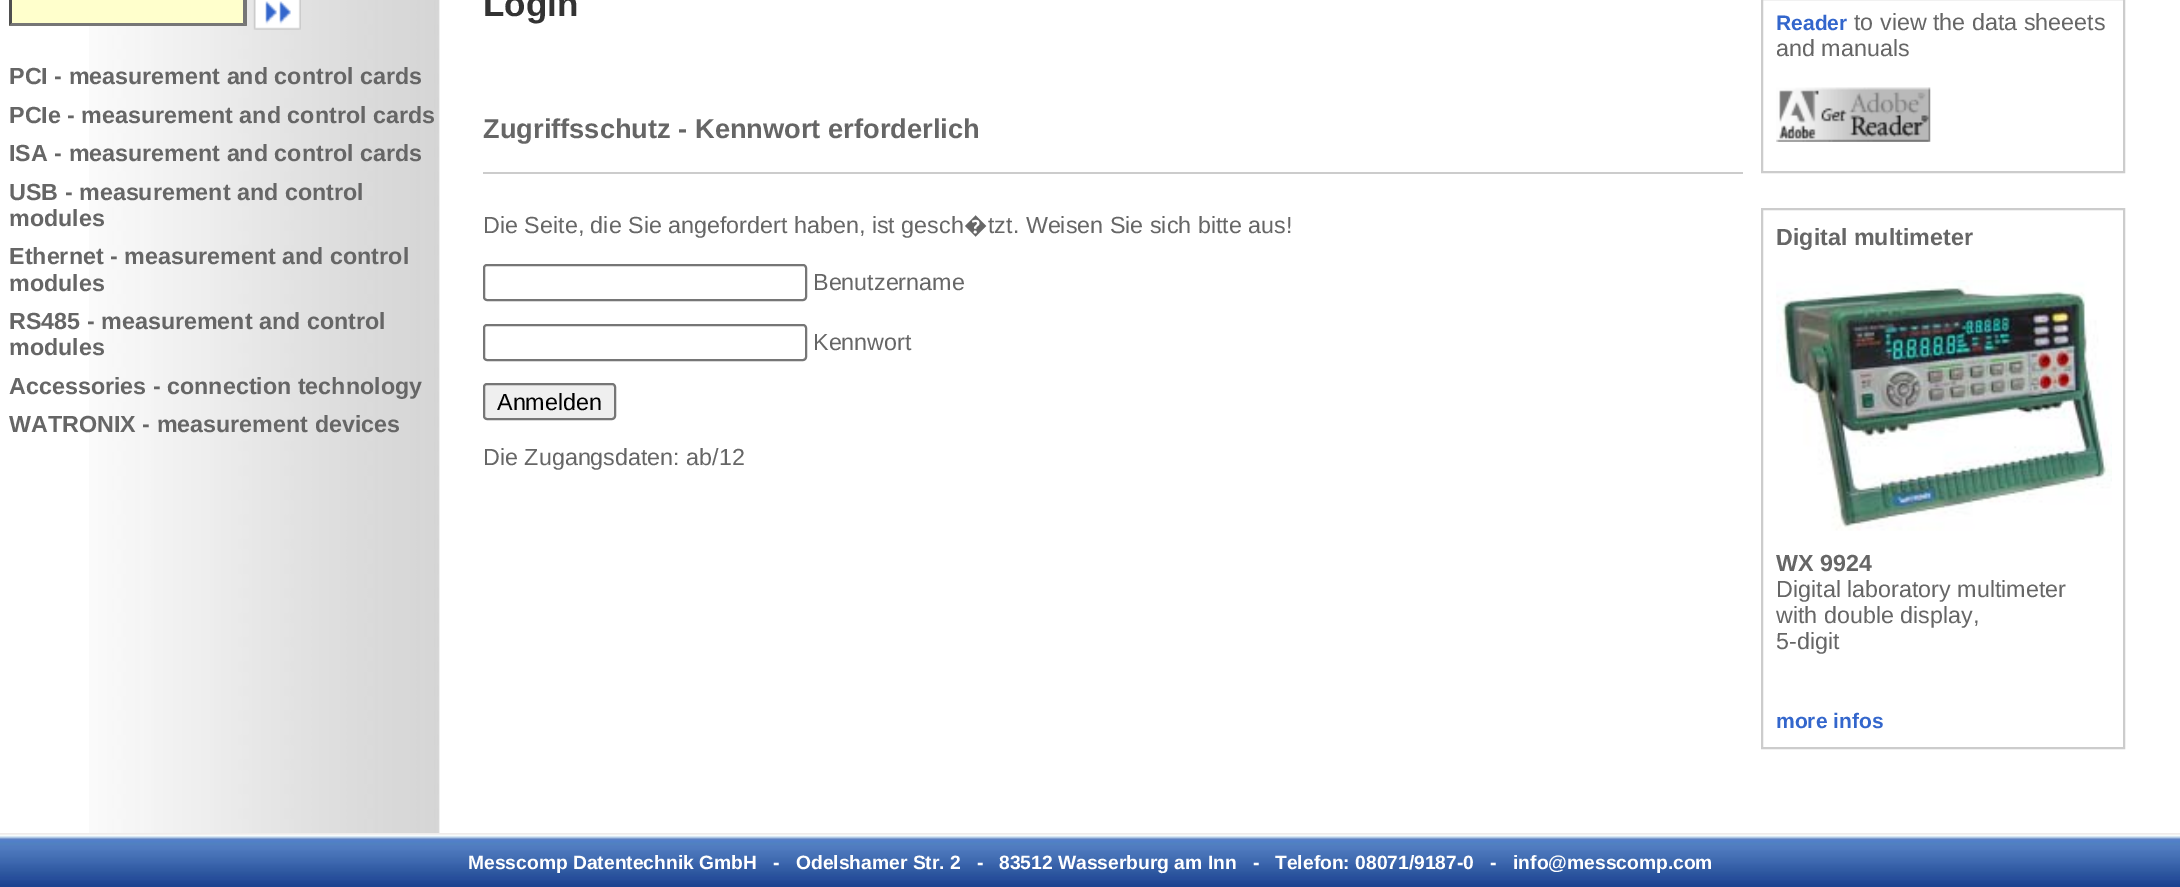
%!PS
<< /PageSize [2180 887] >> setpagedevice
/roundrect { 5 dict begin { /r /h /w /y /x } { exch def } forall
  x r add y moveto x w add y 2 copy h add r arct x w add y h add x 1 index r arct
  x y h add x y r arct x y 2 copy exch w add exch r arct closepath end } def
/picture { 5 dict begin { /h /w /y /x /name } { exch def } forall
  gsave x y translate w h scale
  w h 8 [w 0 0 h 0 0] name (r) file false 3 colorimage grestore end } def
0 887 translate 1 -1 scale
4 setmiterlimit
1 setgray
0 0 2180 887 rectfill
(img1.rgb) 89 0 351 833 picture
1 1 0.8 setrgbcolor
9 0 238 26 rectfill
0.463 setgray
newpath 247 -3.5 moveto 247 26 lineto 243 23 lineto 243 0 lineto closepath fill
newpath 247 26 moveto 9 26 lineto 12 23 lineto 243 23 lineto closepath fill
0.31 setgray
newpath 9 26 moveto 9 -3.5 lineto 12 0 lineto 12 23 lineto closepath fill
(img2.rgb) 253 0 48 30 picture
/LiberationSans-Bold [23.3 0 0 -23.3 0 0] selectfont
0.4 setgray
9 84 moveto (PCI - measurement and control cards) show
9 123 moveto (PCIe - measurement and control cards) show
9 161 moveto (ISA - measurement and control cards) show
9 200 moveto (USB - measurement and control) show
9 226 moveto (modules) show
9 264 moveto (Ethernet - measurement and control) show
9 291 moveto (modules) show
9 329 moveto (RS485 - measurement and control) show
9 355 moveto (modules) show
9 394 moveto (Accessories - connection technology) show
9 432 moveto (WATRONIX - measurement devices) show
/LiberationSans-Bold [35 0 0 -35 0 0] selectfont
0.2 setgray
483 16 moveto (Login) show
/LiberationSans-Bold [27.25 0 0 -27.25 0 0] selectfont
0.4 setgray
483 138 moveto (Zugriffsschutz - Kennwort erforderlich) show
0.8 setgray
483 172 1260 2 rectfill
/LiberationSans-Regular [23.3 0 0 -23.3 0 0] selectfont
0.4 setgray
483 233 moveto (Die Seite, die Sie angefordert haben, ist gesch) show
/NotoSans-Regular [23.3 0 0 -23.3 0 0] selectfont
964 233 moveto (�) show
/LiberationSans-Regular [23.3 0 0 -23.3 0 0] selectfont
988 233 moveto (tzt. Weisen Sie sich bitte aus!) show
0.463 setgray
2 setlinewidth
484 265 322 35 3 roundrect stroke
0.4 setgray
813 290 moveto (Benutzername) show
0.463 setgray
484 325 322 35 3 roundrect stroke
0.4 setgray
813 350 moveto (Kennwort) show
0.937 setgray
484 384 131 35 3 roundrect gsave fill grestore
0.463 setgray
stroke
0 setgray
497 410 moveto (Anmelden) show
0.4 setgray
483 465 moveto (Die Zugangsdaten: ab/12) show
0.8 setgray
1762 -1 362 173 rectstroke
/LiberationSans-Bold [21 0 0 -21 0 0] selectfont
0.2 0.4 0.8 setrgbcolor
1776 30 moveto (Reader) show
/LiberationSans-Regular [23.3 0 0 -23.3 0 0] selectfont
0.4 setgray
1854 30 moveto (to view the data sheeets) show
1776 56 moveto (and manuals) show
(img3.rgb) 1776 87 155 55 picture
0.8 setgray
1762 209 362 539 rectstroke
/LiberationSans-Bold [23.3 0 0 -23.3 0 0] selectfont
0.4 setgray
1776 245 moveto (Digital multimeter) show
(img4.rgb) 1776 280 336 251 picture
1776 571 moveto (WX 9924) show
/LiberationSans-Regular [23.3 0 0 -23.3 0 0] selectfont
1776 597 moveto (Digital laboratory multimeter) show
1776 623 moveto (with double display,) show
1776 649 moveto (5-digit) show
/LiberationSans-Bold [21 0 0 -21 0 0] selectfont
0.2 0.4 0.8 setrgbcolor
1776 728 moveto (more infos) show
(img5.rgb) 0 833 2180 54 picture
/LiberationSans-Bold [19.25 0 0 -19.25 0 0] selectfont
1 setgray
468 869 moveto (Messcomp Datentechnik GmbH) show
773 869 moveto (-) show
796 869 moveto (Odelshamer Str. 2) show
977 869 moveto (-) show
999 869 moveto (83512 Wasserburg am Inn) show
1253 869 moveto (-) show
1275 869 moveto (Telefon: 08071/9187-0) show
1490 869 moveto (-) show
1513 869 moveto (info@messcomp.com) show
showpage
